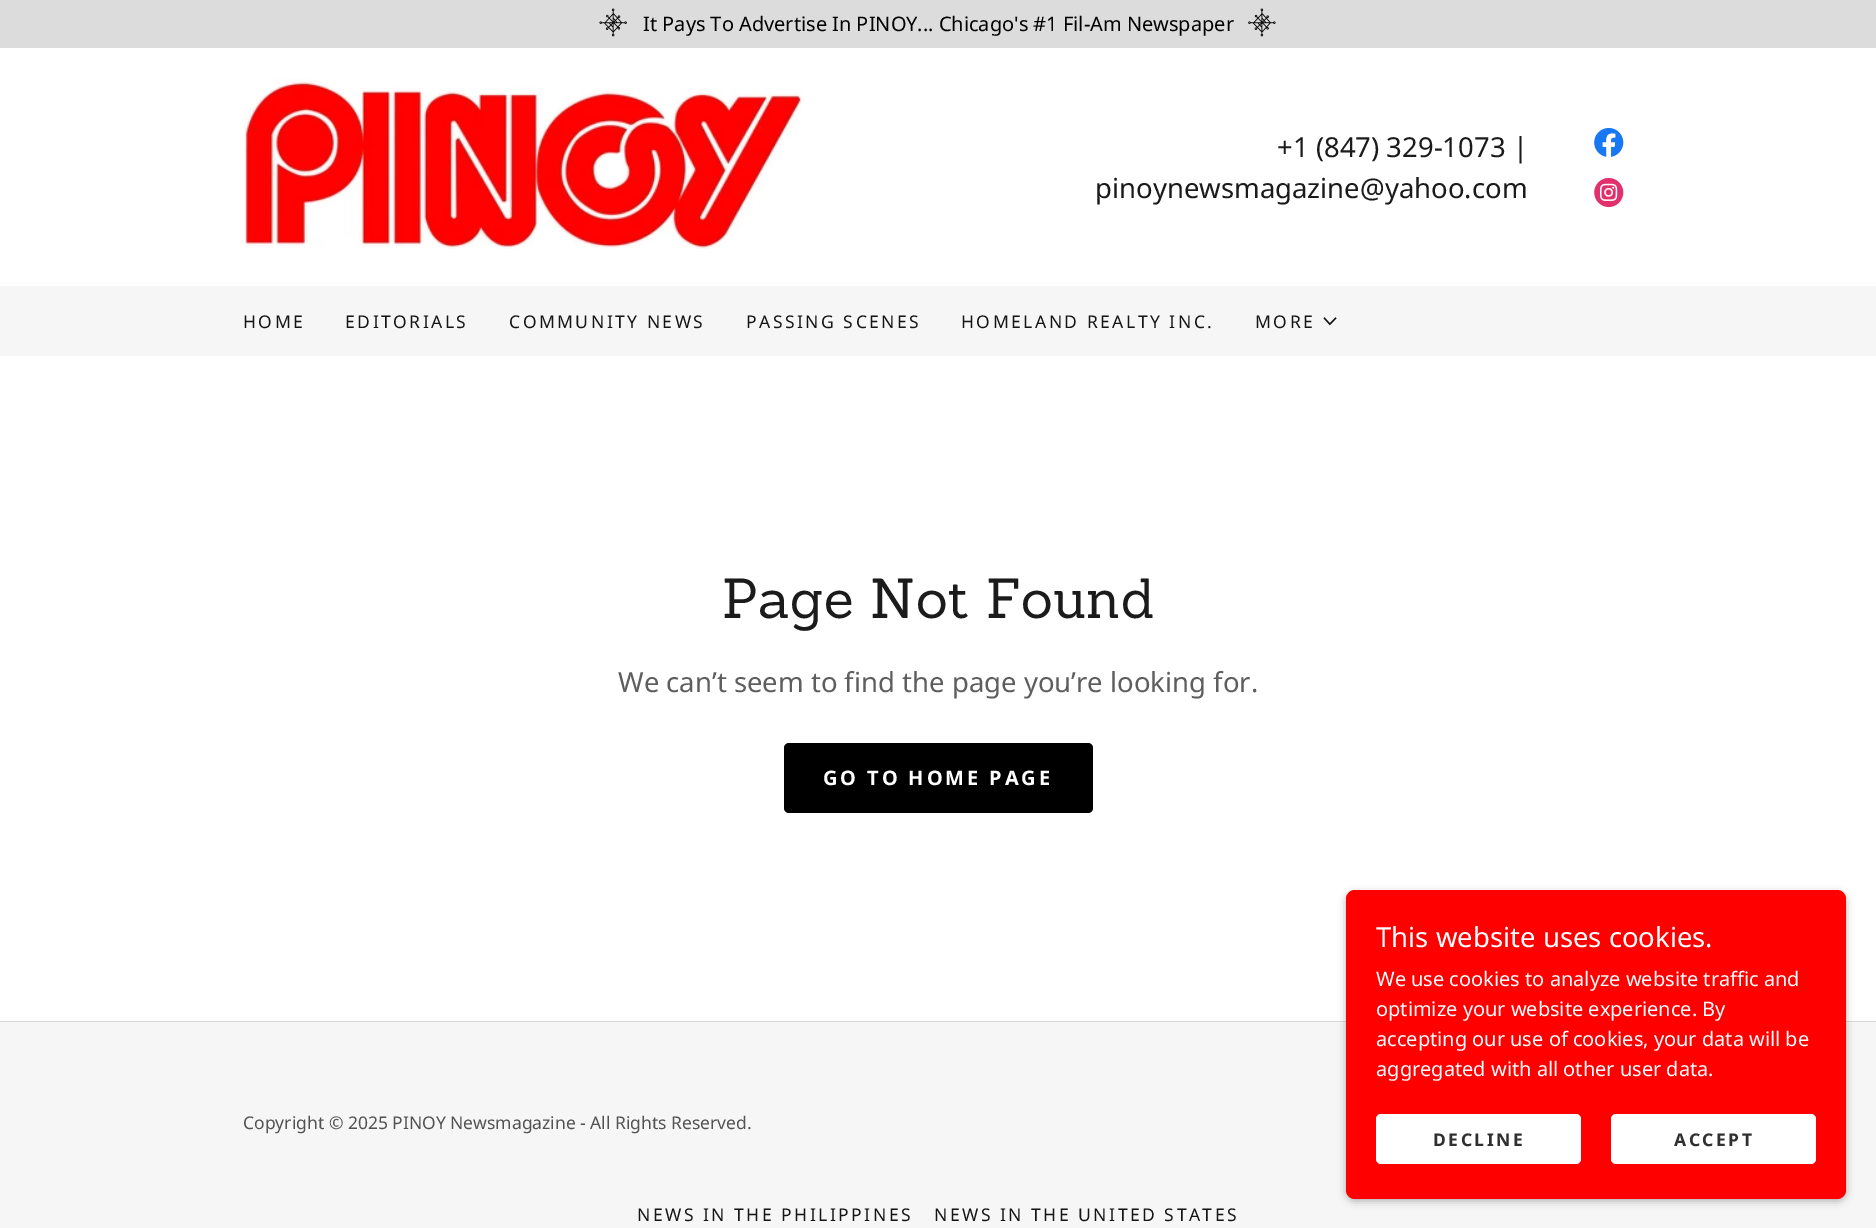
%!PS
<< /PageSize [1876 1228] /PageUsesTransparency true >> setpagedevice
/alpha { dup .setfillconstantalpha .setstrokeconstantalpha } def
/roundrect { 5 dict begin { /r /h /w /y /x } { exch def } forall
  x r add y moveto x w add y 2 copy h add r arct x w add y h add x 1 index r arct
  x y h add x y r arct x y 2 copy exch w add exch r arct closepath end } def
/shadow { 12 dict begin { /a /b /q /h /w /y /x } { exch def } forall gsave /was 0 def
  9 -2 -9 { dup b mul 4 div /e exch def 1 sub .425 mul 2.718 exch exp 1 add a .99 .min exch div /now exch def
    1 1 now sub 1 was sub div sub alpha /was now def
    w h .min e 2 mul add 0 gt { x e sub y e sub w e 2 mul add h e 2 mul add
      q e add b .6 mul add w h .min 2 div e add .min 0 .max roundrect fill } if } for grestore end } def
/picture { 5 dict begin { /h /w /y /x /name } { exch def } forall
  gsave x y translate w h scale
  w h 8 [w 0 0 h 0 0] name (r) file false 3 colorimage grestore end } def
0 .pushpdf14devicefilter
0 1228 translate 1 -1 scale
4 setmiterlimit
0.965 setgray
0 0 1876 1228 rectfill
1 setgray
0 48 1876 238 rectfill
0.863 setgray
0 0 1876 48 rectfill
(img1.rgb) 599 8 28 29 picture
/NotoSans-Regular [20 0 0 -20 0 0] selectfont
0 setgray
643 31 moveto (It Pays To Advertise In PINOY... Chicago's #1 Fil-Am Newspaper) show
(img2.rgb) 1248 8 28 29 picture
(img3.rgb) 244 78 558 171 picture
/NotoSans-Regular [27.5 0 0 -27.5 0 0] selectfont
0.106 setgray
1277 157 moveto (+1 \(847\) 329-1073 |) show
1095 198 moveto (pinoynewsmagazine@yahoo.com) show
(img4.rgb) 1594 127 30 30 picture
(img5.rgb) 1594 177 30 31 picture
/NotoSans-Regular [17.5 0 0 -17.5 0 0] selectfont
0.082 setgray
243 328 moveto 2.5 0 (HOME) ashow
345 328 moveto 2.5 0 (EDITORIALS) ashow
509 328 moveto 2.5 0 (COMMUNITY NEWS) ashow
746 328 moveto 2.5 0 (PASSING SCENES) ashow
961 328 moveto 2.5 0 (HOMELAND REALTY INC.) ashow
1255 328 moveto 2.5 0 (MORE) ashow
(img6.rgb) 1323 317 14 9 picture
1 setgray
0 356 1876 665 rectfill
/Sanchez-Regular [55 0 0 -55 0 0] selectfont
0.106 setgray
722 618 moveto (Page Not Found) show
/NotoSans-Regular [27.5 0 0 -27.5 0 0] selectfont
0.369 setgray
618 692 moveto (We can’t seem to find the page you’re looking for.) show
0 setgray
784 743 309 70 5 roundrect fill
/NotoSans-Bold [20 0 0 -20 0 0] selectfont
1 setgray
823 785 moveto 2.9 0 (GO TO HOME PAGE) ashow
0.855 setgray
0 1021 1876 1 rectfill
0 setgray
1346 893 500 308 9 4 0.3 shadow
1 0 0 setrgbcolor
1346 890 500 309 9 roundrect fill
/NotoSans-Regular [27.5 0 0 -27.5 0 0] selectfont
1 setgray
1376 947 moveto (This website uses cookies.) show
/NotoSans-Regular [20 0 0 -20 0 0] selectfont
1376 986 moveto (We use cookies to analyze website traffic and) show
1376 1016 moveto (optimize your website experience. By) show
1376 1046 moveto (accepting our use of cookies, your data will be) show
1376 1076 moveto (aggregated with all other user data.) show
1376 1114 205 50 5 roundrect fill
/NotoSans-Bold [17.5 0 0 -17.5 0 0] selectfont
0.188 setgray
1433 1146 moveto 2.5 0 (DECLINE) ashow
1 setgray
1611 1114 205 50 5 roundrect fill
0.188 setgray
1674 1146 moveto 2.5 0 (ACCEPT) ashow
/NotoSans-Regular [17.5 0 0 -17.5 0 0] selectfont
0.322 setgray
243 1129 moveto (Copyright © 2025 PINOY Newsmagazine - All Rights Reserved.) show
0.082 setgray
637 1221 moveto 2.5 0 (NEWS IN THE PHILIPPINES) ashow
934 1221 moveto 2.5 0 (NEWS IN THE UNITED STATES) ashow
.poppdf14devicefilter showpage
